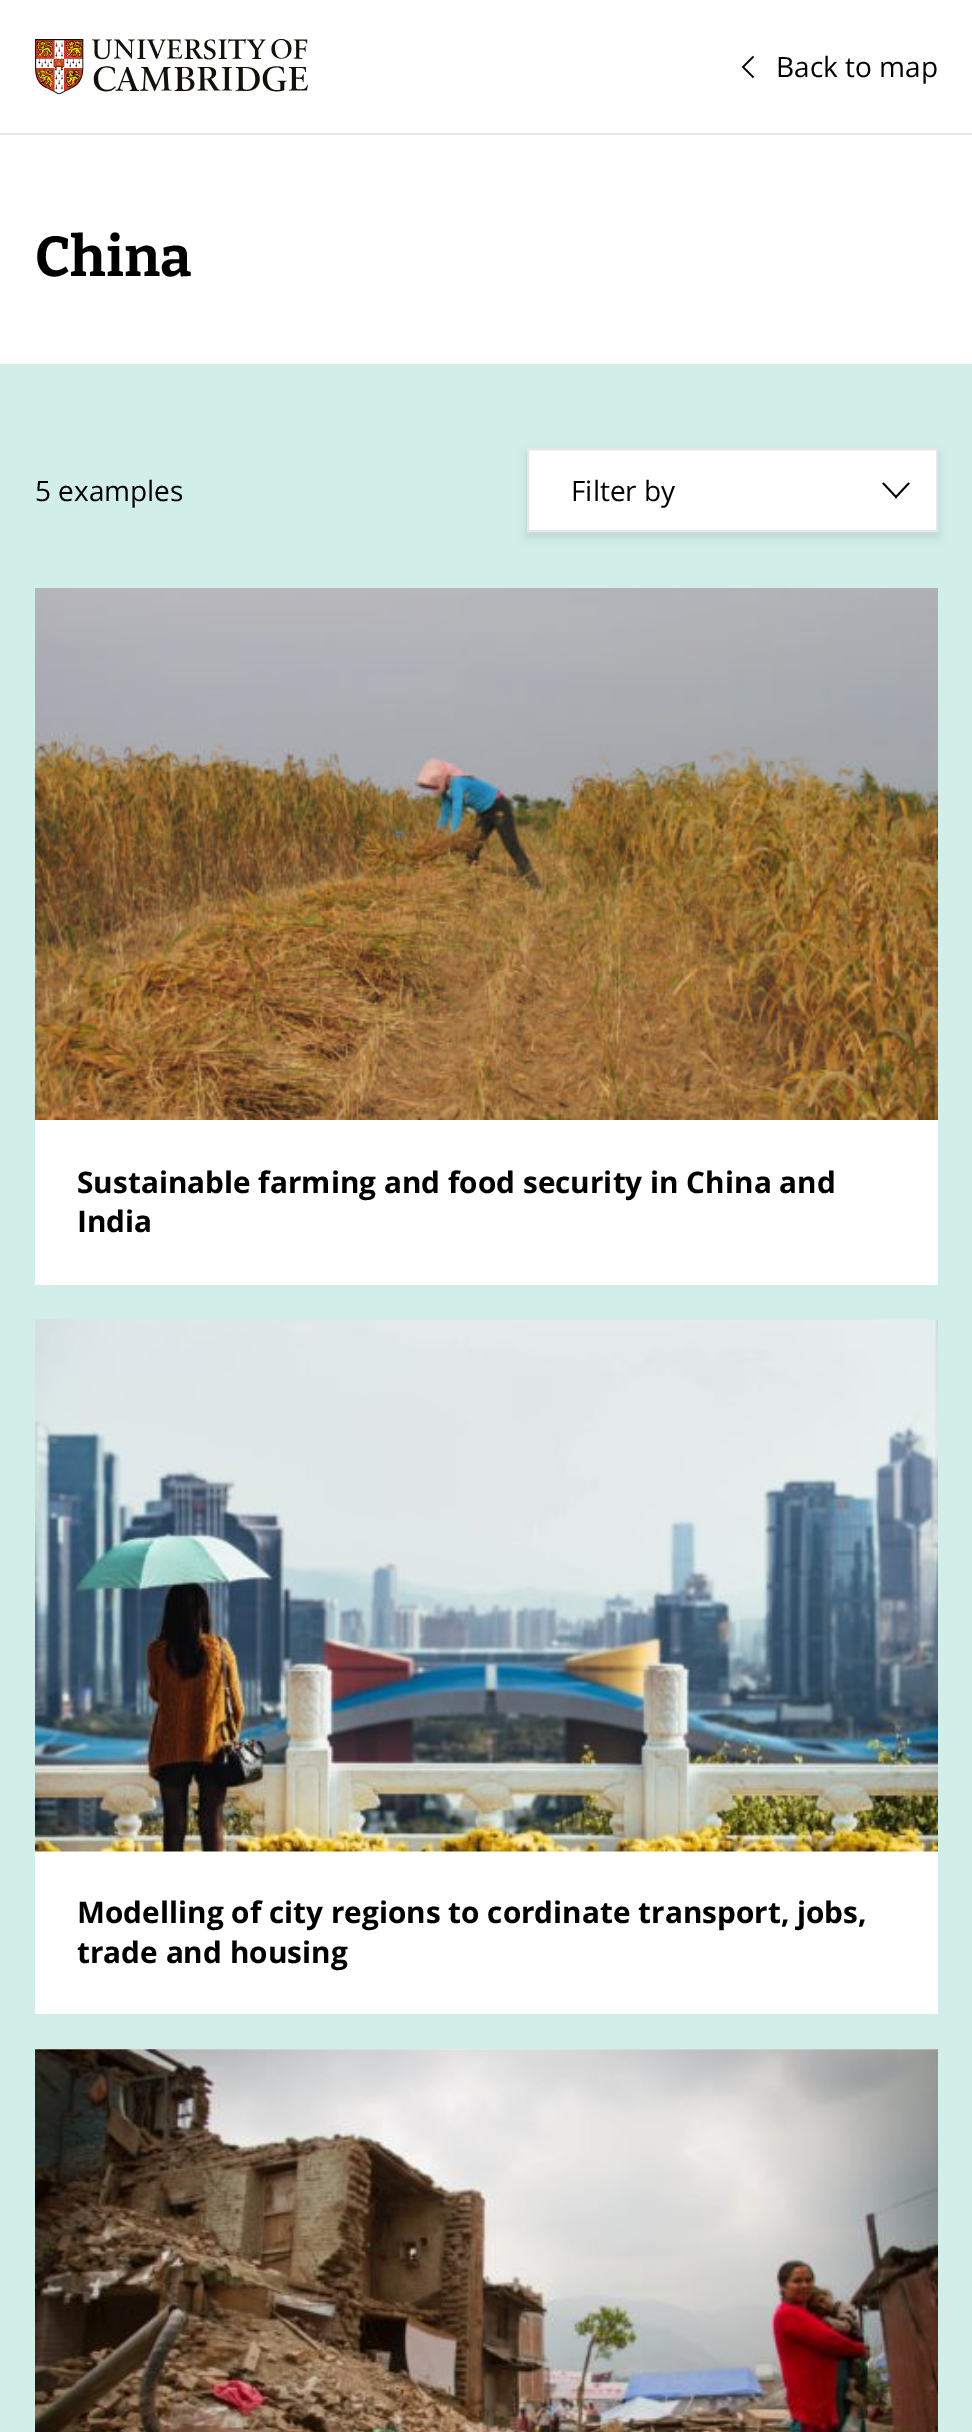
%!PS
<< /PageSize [972 2432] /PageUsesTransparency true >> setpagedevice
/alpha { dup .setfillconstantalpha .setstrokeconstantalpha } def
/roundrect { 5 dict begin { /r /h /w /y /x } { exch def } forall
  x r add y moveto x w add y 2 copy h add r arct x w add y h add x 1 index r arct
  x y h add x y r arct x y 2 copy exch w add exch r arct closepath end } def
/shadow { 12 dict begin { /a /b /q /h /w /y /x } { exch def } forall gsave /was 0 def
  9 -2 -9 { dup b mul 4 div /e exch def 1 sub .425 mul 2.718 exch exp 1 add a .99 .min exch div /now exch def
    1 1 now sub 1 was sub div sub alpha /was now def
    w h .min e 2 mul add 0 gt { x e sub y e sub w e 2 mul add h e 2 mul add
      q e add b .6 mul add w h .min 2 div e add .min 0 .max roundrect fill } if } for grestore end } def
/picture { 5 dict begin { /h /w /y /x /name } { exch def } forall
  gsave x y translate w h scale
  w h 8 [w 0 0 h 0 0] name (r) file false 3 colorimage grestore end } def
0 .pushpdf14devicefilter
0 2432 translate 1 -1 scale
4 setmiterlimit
1 setgray
0 0 972 2432 rectfill
0.902 setgray
0 133 972 2 rectfill
(img1.rgb) 35 39 273 56 picture
0 setgray
1.5 setlinewidth
newpath 753.5 77.5 moveto 743 67 lineto 753.5 56.5 lineto stroke
/OpenSans-Regular [28 0 0 -28 0 0] selectfont
776 77 moveto (Back to map) show
/Bitter-Thin [56 0 0 -56 0 0] selectfont
35 276 moveto (China) show
0.82 0.933 0.914 setrgbcolor
0 364 972 2068 rectfill
/OpenSans-Regular [28 0 0 -28 0 0] selectfont
0 setgray
35 501 moveto (5 examples) show
527 453 411 84 0 5 0.1 shadow
0.996 1 0.996 setrgbcolor
newpath 528 449 moveto 937 449 lineto 937 531 lineto 528 531 lineto closepath gsave fill grestore
0.898 0.902 0.898 setrgbcolor
2 setlinewidth
stroke
0 setgray
571 501 moveto (Filter by) show
1.8 setlinewidth
newpath 883 483 moveto 896 497 lineto 909 483 lineto stroke
0.996 1 0.996 setrgbcolor
35 1120 903 165 rectfill
(img2.rgb) 35 588 903 532 picture
/OpenSans-Bold [29.75 0 0 -29.75 0 0] selectfont
0 setgray
77 1193 moveto (Sustainable farming and food security in China and) show
77 1232 moveto (India) show
0.996 1 0.996 setrgbcolor
35 1851 903 163 rectfill
(img3.rgb) 35 1319 903 533 picture
0 setgray
77 1923 moveto (Modelling of city regions to cordinate transport, jobs,) show
77 1963 moveto (trade and housing) show
(img4.rgb) 35 2049 903 383 picture
.poppdf14devicefilter showpage
